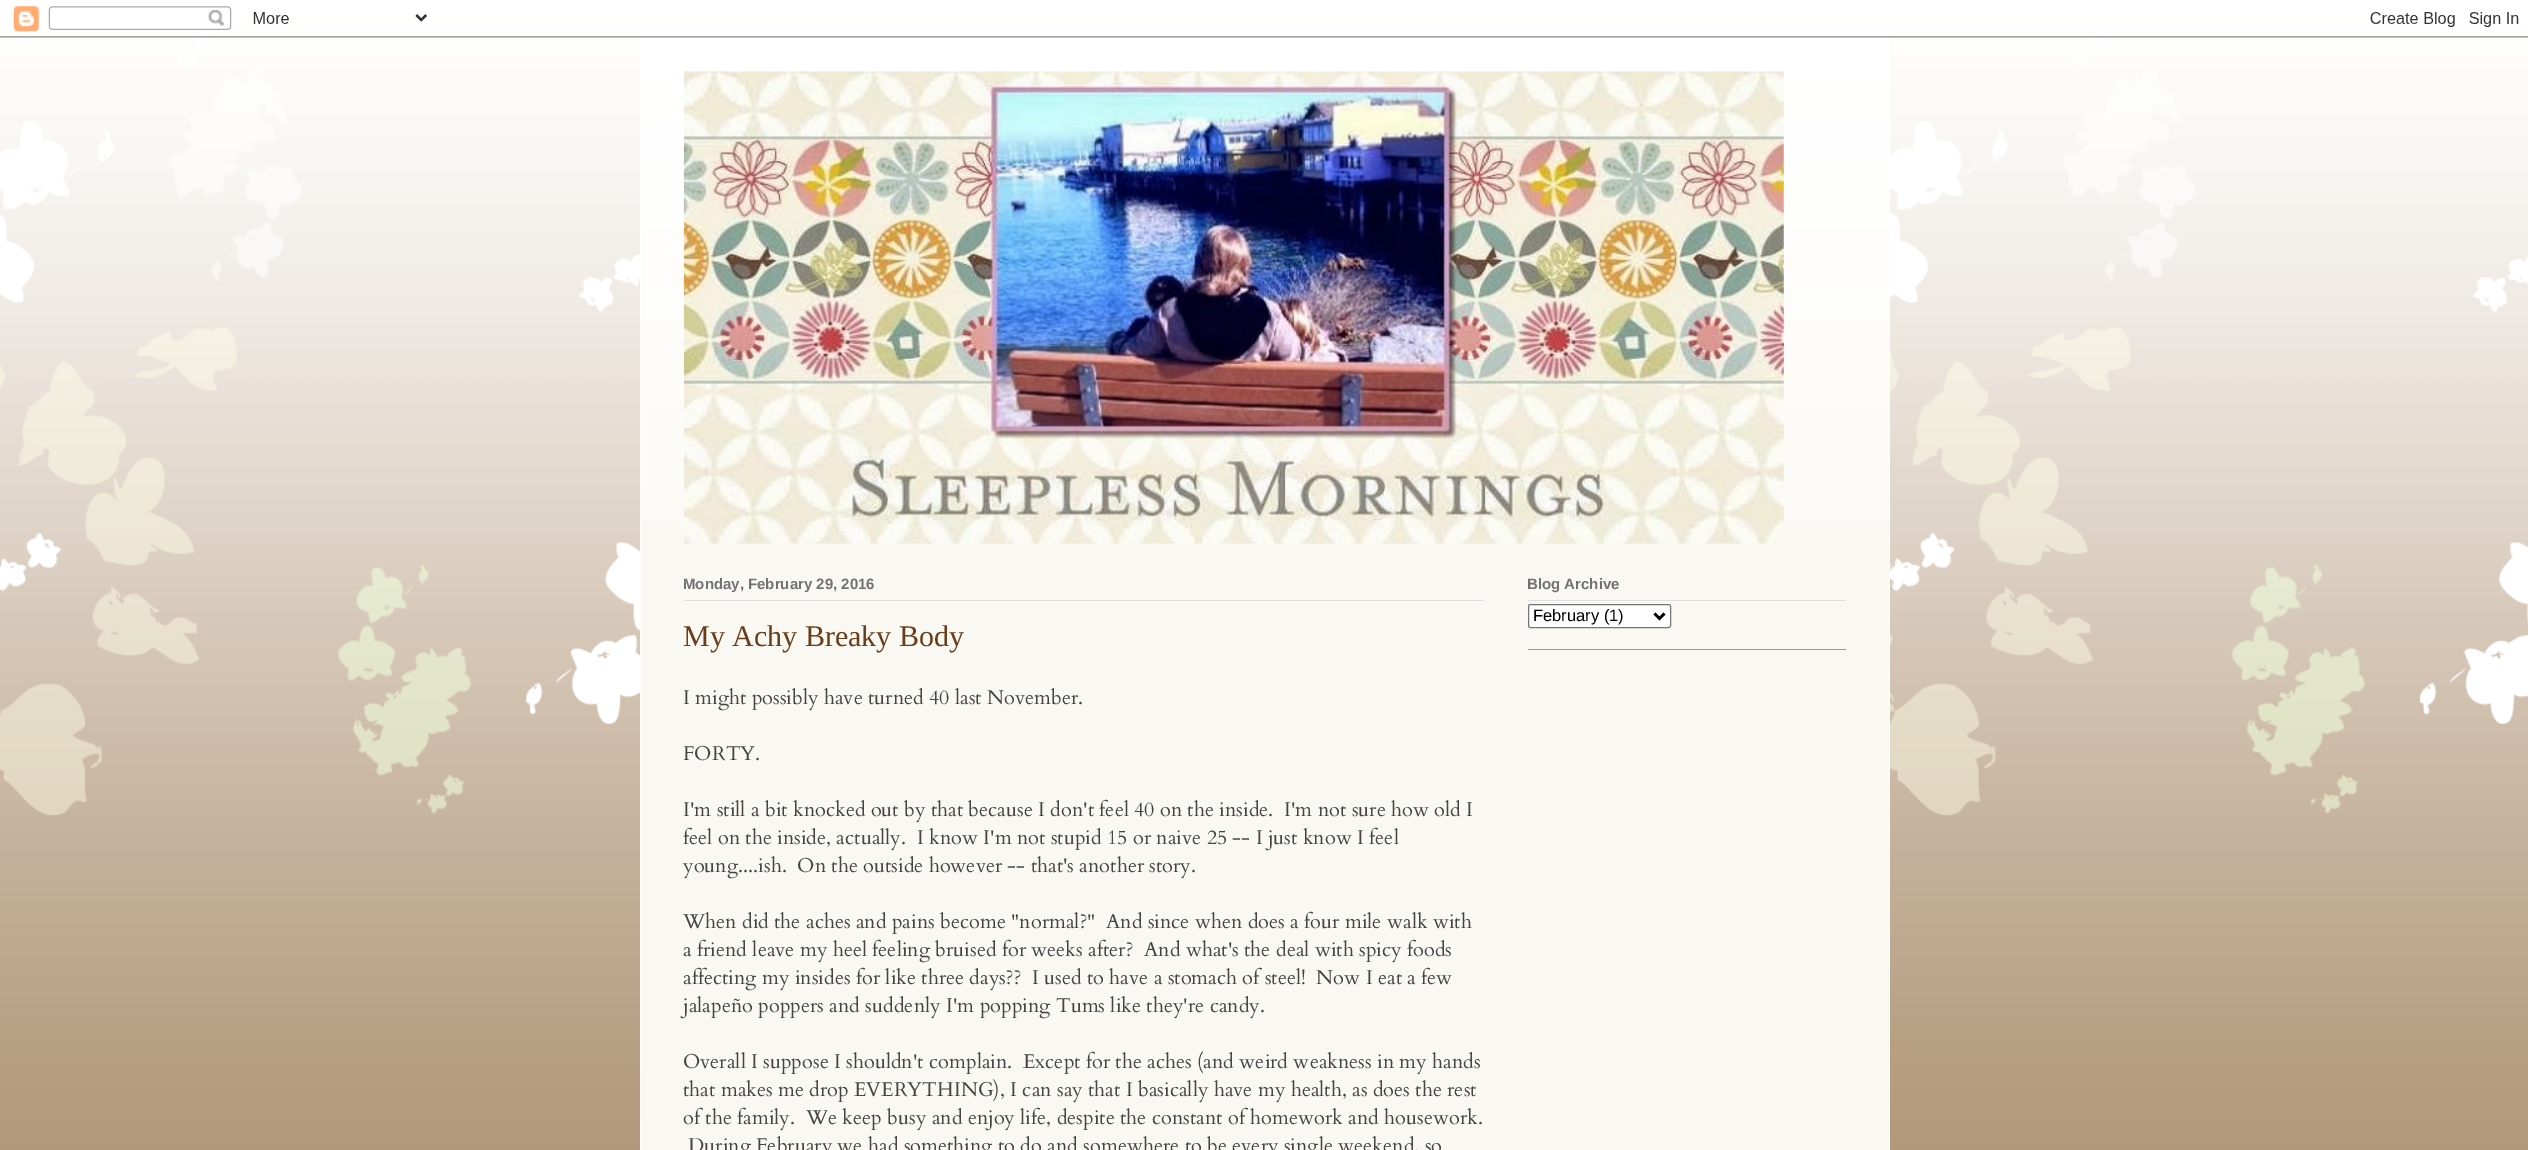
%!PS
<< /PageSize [2528 1150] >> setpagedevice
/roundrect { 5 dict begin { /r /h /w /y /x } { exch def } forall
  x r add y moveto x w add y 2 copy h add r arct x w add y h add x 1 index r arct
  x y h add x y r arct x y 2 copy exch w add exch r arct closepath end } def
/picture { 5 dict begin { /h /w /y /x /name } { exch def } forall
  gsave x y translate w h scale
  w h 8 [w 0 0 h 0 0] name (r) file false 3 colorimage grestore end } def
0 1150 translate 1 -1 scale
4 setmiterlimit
0.69 0.584 0.467 setrgbcolor
0 0 2528 1150 rectfill
(img1.rgb) 0 0 2528 1150 picture
(img2.rgb) 0 6 2528 32 picture
0.98 0.973 0.949 setrgbcolor
641 46 1248 1104 rectfill
(img3.rgb) 641 38 1248 485 picture
1 setgray
1889 38 1 1112 rectfill
640 38 1 1112 rectfill
(img4.rgb) 683 71 1101 473 picture
0.871 setgray
684 600 800 1 rectfill
/LiberationSans-Bold [15 0 0 -15 0 0] selectfont
0.447 setgray
683 589 moveto (Monday, February 29, 2016) show
/LiberationSerif-Regular [30 0 0 -30 0 0] selectfont
0.408 0.239 0.102 setrgbcolor
683 646 moveto (My Achy Breaky Body) show
/Cardo-Regular [20 0 0 -20 0 0] selectfont
0.267 setgray
683 704 moveto (I might possibly have turned 40 last November.) show
683 760 moveto (FORTY.) show
683 816 moveto (I'm still a bit knocked out by that because I don't feel 40 on the inside.  I'm not sure how old I) show
683 844 moveto (feel on the inside, actually.  I know I'm not stupid 15 or naive 25 -- I just know I feel) show
683 872 moveto (young....ish.  On the outside however -- that's another story.) show
683 928 moveto (When did the aches and pains become "normal?"  And since when does a four mile walk with) show
683 956 moveto (a friend leave my heel feeling bruised for weeks after?  And what's the deal with spicy foods) show
683 984 moveto (affecting my insides for like three days??  I used to have a stomach of steel!  Now I eat a few) show
683 1012 moveto (jalapeño poppers and suddenly I'm popping Tums like they're candy.) show
683 1068 moveto (Overall I suppose I shouldn't complain.  Except for the aches \(and weird weakness in my hands) show
683 1096 moveto (that makes me drop EVERYTHING\), I can say that I basically have my health, as does the rest) show
683 1124 moveto (of the family.  We keep busy and enjoy life, despite the constant of homework and housework.) show
688 1152 moveto (During February we had something to do and somewhere to be every single weekend, so) show
0.6 setgray
1528 649 318 1 rectfill
0.871 setgray
1528 600 318 1 rectfill
/LiberationSans-Bold [15 0 0 -15 0 0] selectfont
0.447 setgray
1527 589 moveto (Blog Archive) show
1 setgray
1528.5 604.5 142 23 2 roundrect gsave fill grestore
0.463 setgray
stroke
0 setgray
2.5 setlinewidth
newpath 1654.5 613.5 moveto 1659.5 618.5 lineto 1664.5 613.5 lineto stroke
/LiberationSans-Regular [16.5 0 0 -16.5 0 0] selectfont
1533 621 moveto (February \(1\)) show
showpage
